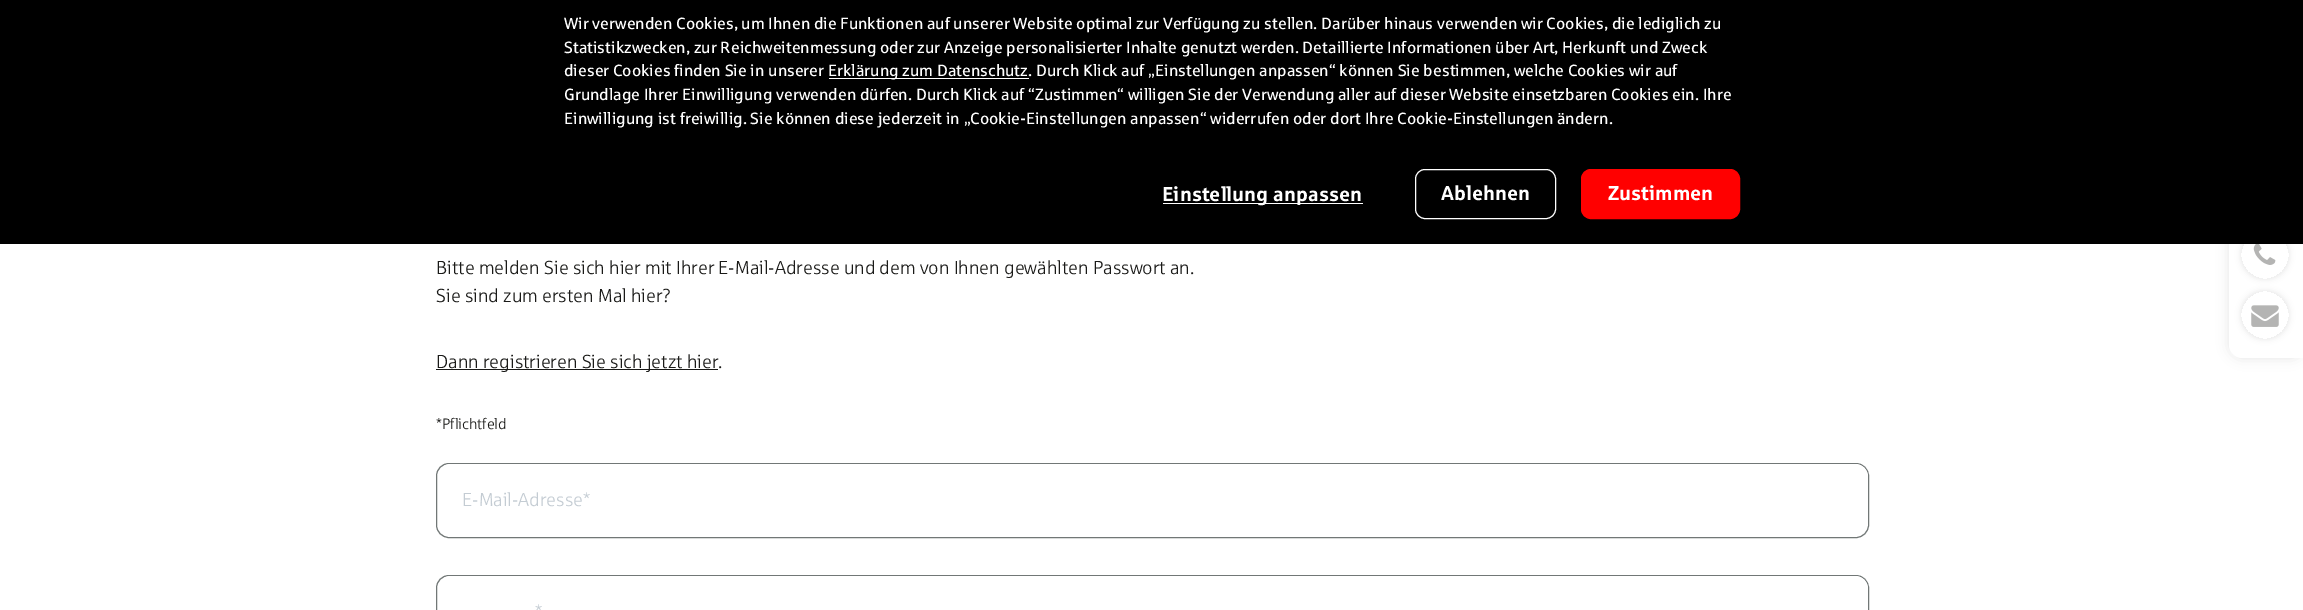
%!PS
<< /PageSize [2303 610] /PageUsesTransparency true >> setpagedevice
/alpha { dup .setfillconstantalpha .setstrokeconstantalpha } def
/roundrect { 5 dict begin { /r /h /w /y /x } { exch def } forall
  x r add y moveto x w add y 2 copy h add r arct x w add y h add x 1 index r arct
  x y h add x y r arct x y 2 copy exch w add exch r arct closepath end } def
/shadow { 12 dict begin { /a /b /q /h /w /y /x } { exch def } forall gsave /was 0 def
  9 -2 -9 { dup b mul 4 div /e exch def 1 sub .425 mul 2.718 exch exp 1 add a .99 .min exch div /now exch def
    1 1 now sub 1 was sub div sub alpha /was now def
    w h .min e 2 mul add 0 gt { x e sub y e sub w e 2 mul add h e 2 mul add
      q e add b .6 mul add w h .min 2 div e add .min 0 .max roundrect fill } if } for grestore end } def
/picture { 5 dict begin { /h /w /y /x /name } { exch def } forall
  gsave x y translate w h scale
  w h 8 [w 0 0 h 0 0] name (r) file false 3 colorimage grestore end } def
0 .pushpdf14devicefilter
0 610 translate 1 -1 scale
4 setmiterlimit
1 setgray
0 0 2303 610 rectfill
0 setgray
2229 213 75 145 13 6 0.1 shadow
1 setgray
newpath 2242 213 moveto 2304 213 lineto 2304 358 lineto 2242 358 lineto 2235 358 2229 352 2229 345 curveto 2229 226 lineto 2229 219 2235 213 2242 213 curveto closepath fill
gsave
newpath 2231 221 moveto 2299 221 lineto 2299 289 lineto 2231 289 lineto closepath 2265 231 moveto 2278.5 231 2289 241.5 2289 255 curveto 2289 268.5 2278.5 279 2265 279 curveto 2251.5 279 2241 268.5 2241 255 curveto 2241 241.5 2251.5 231 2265 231 curveto closepath eoclip newpath
0 setgray
2241 231 48 48 24 3 0.1 shadow
grestore
0 setgray
0 0 2303 244 rectfill
/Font-Regular [16.25 0 0 -16.25 0 0] selectfont
1 setgray
564 29 moveto (Wir verwenden Cookies, um Ihnen die Funktionen auf unserer Website optimal zur Verfügung zu stellen. Darüber hinaus verwenden wir Cookies, die lediglich zu) show
564 53 moveto (Statistikzwecken, zur Reichweitenmessung oder zur Anzeige personalisierter Inhalte genutzt werden. Detaillierte Informationen über Art, Herkunft und Zweck) show
564 76 moveto (dieser Cookies finden Sie in unserer) show
829 78 200 1 rectfill
828 76 moveto (Erklärung zum Datenschutz. Durch Klick auf „Einstellungen anpassen“ können Sie bestimmen, welche Cookies wir auf) show
564 100 moveto (Grundlage Ihrer Einwilligung verwenden dürfen. Durch Klick auf “Zustimmen“ willigen Sie der Verwendung aller auf dieser Website einsetzbaren Cookies ein. Ihre) show
564 124 moveto (Einwilligung ist freiwillig. Sie können diese jederzeit in „Cookie-Einstellungen anpassen“ widerrufen oder dort Ihre Cookie-Einstellungen ändern.) show
1163 203 200 1 rectfill
/Font-Bold [20 0 0 -20 0 0] selectfont
1162 201 moveto (Einstellung anpassen) show
1415.5 169.5 140 49 9.5 roundrect stroke
1441 200 moveto (Ablehnen) show
1 0 0 setrgbcolor
1581.5 169.5 158 49 9.5 roundrect gsave fill grestore
stroke
1 setgray
1608 200 moveto (Zustimmen) show
/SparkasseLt-Regular [18.75 0 0 -18.75 0 0] selectfont
0.102 0.102 0.094 setrgbcolor
436 274 moveto (Bitte melden Sie sich hier mit Ihrer E-Mail-Adresse und dem von Ihnen gewählten Passwort an.) show
436 302 moveto (Sie sind zum ersten Mal hier?) show
436 369 282 1 rectfill
436 368 moveto (Dann registrieren Sie sich jetzt hier.) show
/SparkasseLt-Regular [15 0 0 -15 0 0] selectfont
436 429 moveto (*Pflichtfeld) show
0.443 0.467 0.463 setrgbcolor
436.5 463.5 1432 74 12.5 roundrect stroke
1 setgray
438 464 1430 70 13 roundrect fill
/SparkasseLt-Regular [18.75 0 0 -18.75 0 0] selectfont
0.769 0.8 0.827 setrgbcolor
462 506 moveto (E-Mail-Adresse*) show
0.443 0.467 0.463 setrgbcolor
436.5 575.5 1432 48 12.5 roundrect stroke
1 setgray
438 576 1430 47 13 roundrect fill
0.769 0.8 0.827 setrgbcolor
535 618 moveto (*) show
(img1.rgb) 2253 244 23 21 picture
gsave
newpath 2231 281 moveto 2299 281 lineto 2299 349 lineto 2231 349 lineto closepath 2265 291 moveto 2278.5 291 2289 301.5 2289 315 curveto 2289 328.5 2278.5 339 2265 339 curveto 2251.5 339 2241 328.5 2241 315 curveto 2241 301.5 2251.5 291 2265 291 curveto closepath eoclip newpath
0 setgray
2241 291 48 48 24 3 0.1 shadow
grestore
(img2.rgb) 2251 305 28 22 picture
.poppdf14devicefilter showpage
